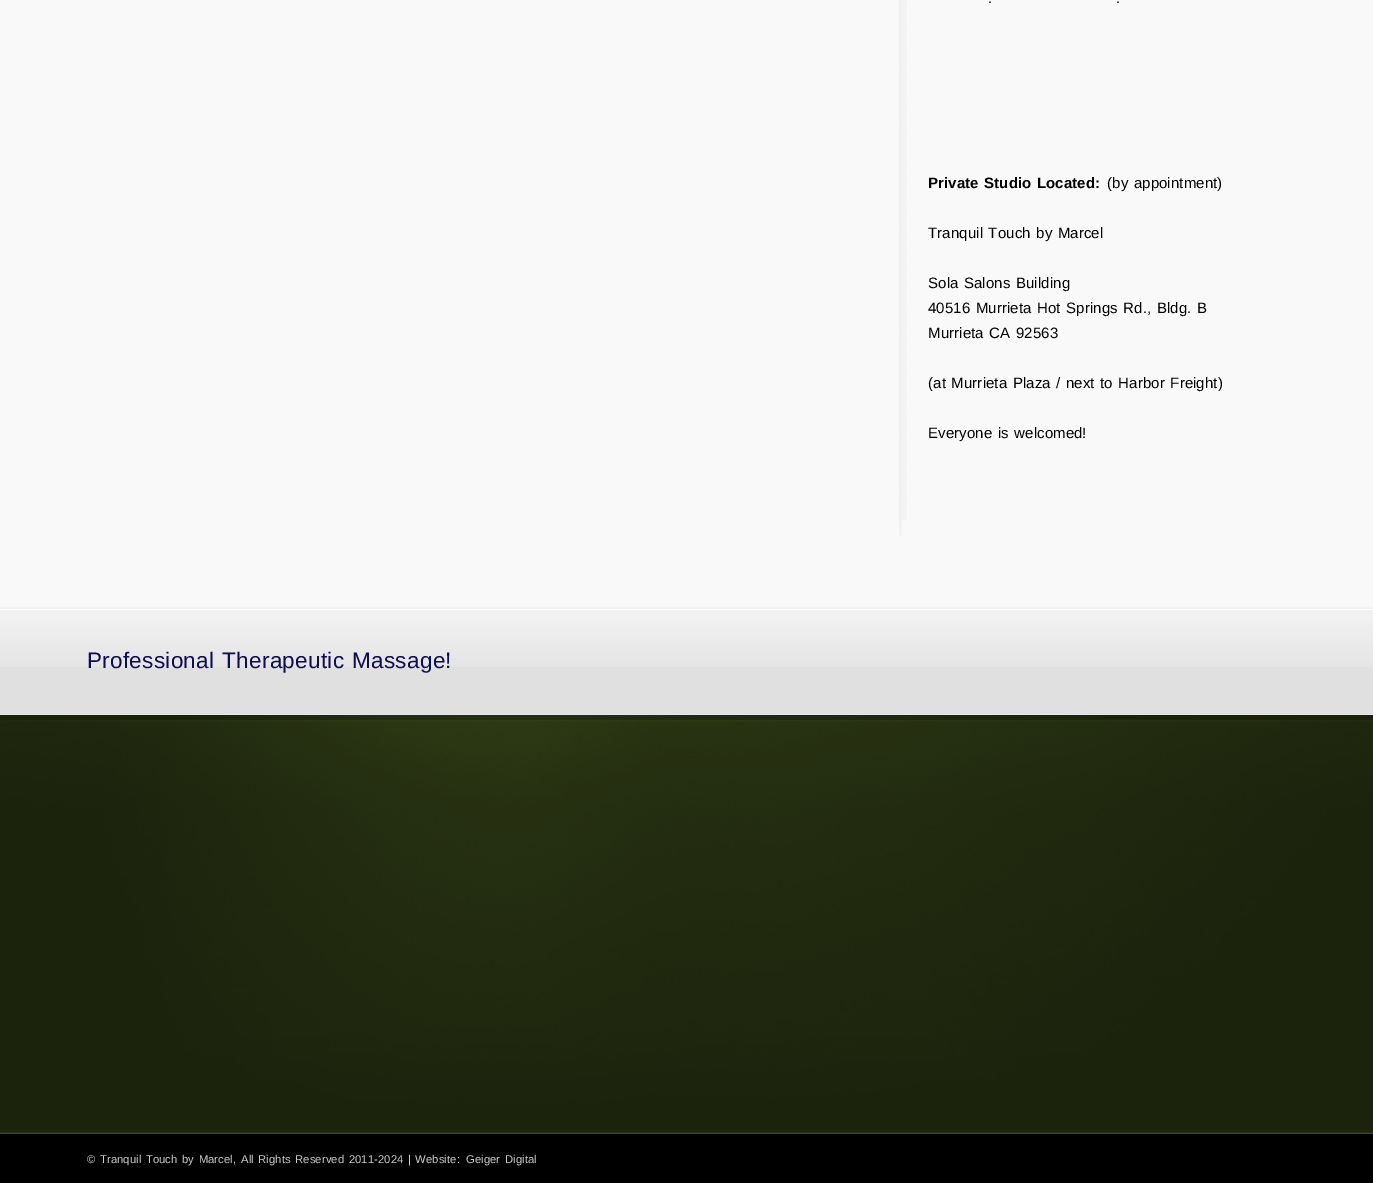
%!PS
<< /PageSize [1373 1183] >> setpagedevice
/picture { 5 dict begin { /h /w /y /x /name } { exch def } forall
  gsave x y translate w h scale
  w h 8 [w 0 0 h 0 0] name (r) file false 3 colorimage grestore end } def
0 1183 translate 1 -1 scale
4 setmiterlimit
0.976 setgray
0 0 1373 1183 rectfill
(img1.rgb) 899 0 8 520 picture
/LiberationSans-Regular [15 0 0 -15 0 0] selectfont
0 setgray
988 3 moveto 1.25 0 32 0.1 0 (.) awidthshow
1116 3 moveto 1.25 0 32 0.1 0 (.) awidthshow
/LiberationSans-Bold [15 0 0 -15 0 0] selectfont
928 188 moveto 1.25 0 32 0.1 0 (Private Studio Located:) awidthshow
/LiberationSans-Regular [15 0 0 -15 0 0] selectfont
1107 188 moveto 1.25 0 32 0.1 0 (\(by appointment\)) awidthshow
928 238 moveto 1.25 0 32 0.1 0 (Tranquil Touch by Marcel) awidthshow
928 288 moveto 1.25 0 32 0.1 0 (Sola Salons Building) awidthshow
928 313 moveto 1.25 0 32 0.1 0 (40516 Murrieta Hot Springs Rd., Bldg. B) awidthshow
928 338 moveto 1.25 0 32 0.1 0 (Murrieta CA 92563) awidthshow
928 388 moveto 1.25 0 32 0.1 0 (\(at Murrieta Plaza / next to Harbor Freight\)) awidthshow
928 438 moveto 1.25 0 32 0.1 0 (Everyone is welcomed!) awidthshow
(img2.rgb) 899 520 3 16 picture
0.878 setgray
0 667 1373 47 rectfill
(img3.rgb) 0 607 1373 60 picture
0.91 setgray
0 714 1373 1 rectfill
/LiberationSans-Regular [22.5 0 0 -22.5 0 0] selectfont
0.055 0.055 0.329 setrgbcolor
87 668 moveto 1.25 0 32 0.3 0 (Professional Therapeutic Massage!) awidthshow
0.227 0.286 0.102 setrgbcolor
0 715 1373 419 rectfill
(img4.rgb) 0 715 1373 418 picture
0 setgray
0 1134 1373 49 rectfill
/LiberationSans-Regular [11.25 0 0 -11.25 0 0] selectfont
0.8 setgray
87 1163 moveto 1.25 0 32 0.1 0 (© Tranquil Touch by Marcel,) awidthshow
241 1163 moveto 1.25 0 32 0.1 0 (All Rights Reserved 2011-2024 | Website:) awidthshow
466 1163 moveto 1.25 0 32 0.1 0 (Geiger Digital) awidthshow
showpage
